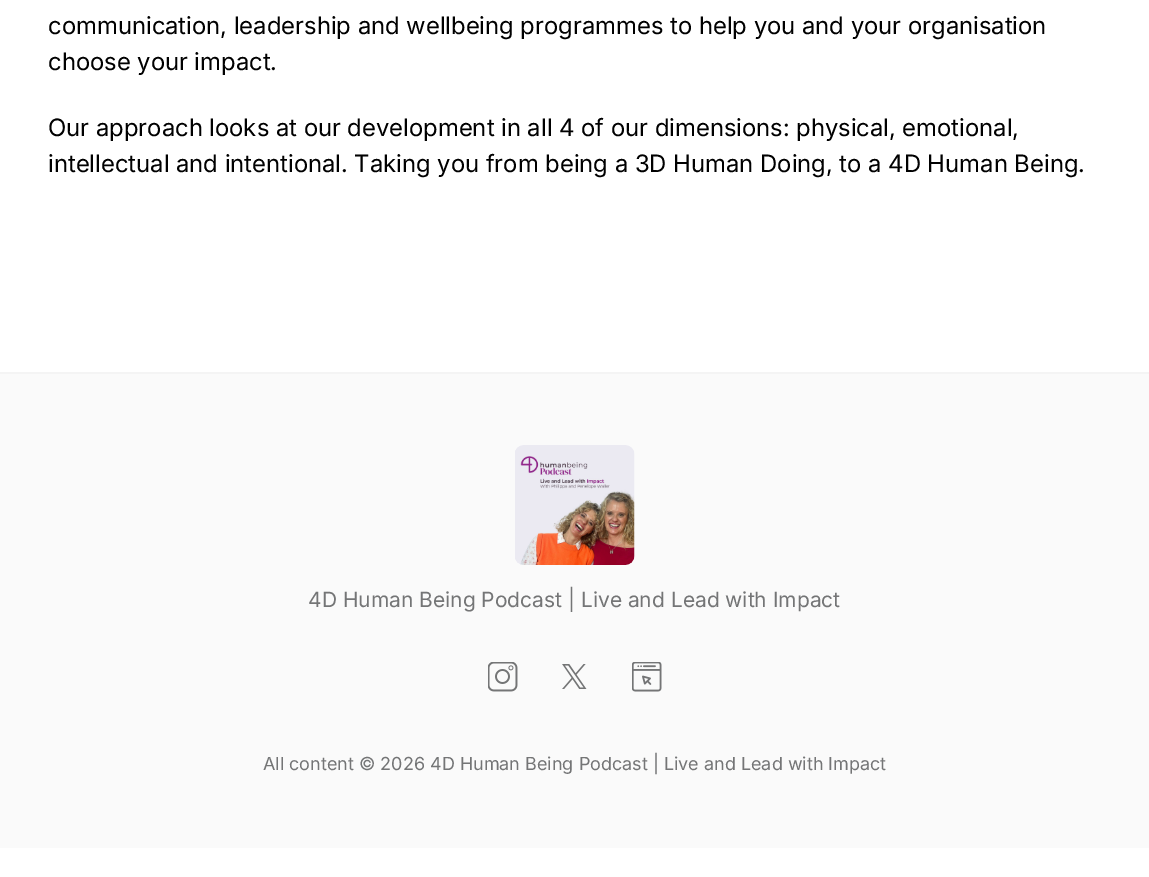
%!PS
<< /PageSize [1149 877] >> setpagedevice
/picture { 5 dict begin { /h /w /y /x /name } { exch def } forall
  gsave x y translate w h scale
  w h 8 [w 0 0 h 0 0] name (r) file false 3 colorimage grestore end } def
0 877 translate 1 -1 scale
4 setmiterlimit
1 setgray
0 0 1149 877 rectfill
/Inter-Regular [24 0 0 -24 0 0] selectfont
0 setgray
48 34 moveto (communication, leadership and wellbeing programmes to help you and your organisation) show
48 70 moveto (choose your impact.) show
48 136 moveto (Our approach looks at our development in all 4 of our dimensions: physical, emotional,) show
48 172 moveto (intellectual and intentional. Taking you from being a 3D Human Doing, to a 4D Human Being.) show
0.98 setgray
0 374 1149 474 rectfill
0.957 setgray
0 372 1149 2 rectfill
(img1.rgb) 515 445 120 120 picture
/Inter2-Regular [21 0 0 -21 0 0] selectfont
0.455 0.459 0.463 setrgbcolor
308 607 moveto (4D Human Being Podcast | Live and Lead with Impact) show
(img2.rgb) 488 662 30 30 picture
(img3.rgb) 562 664 25 25 picture
(img4.rgb) 632 662 30 30 picture
/Inter2-Regular [18 0 0 -18 0 0] selectfont
263 770 moveto (All content © 2026 4D Human Being Podcast | Live and Lead with Impact) show
showpage
